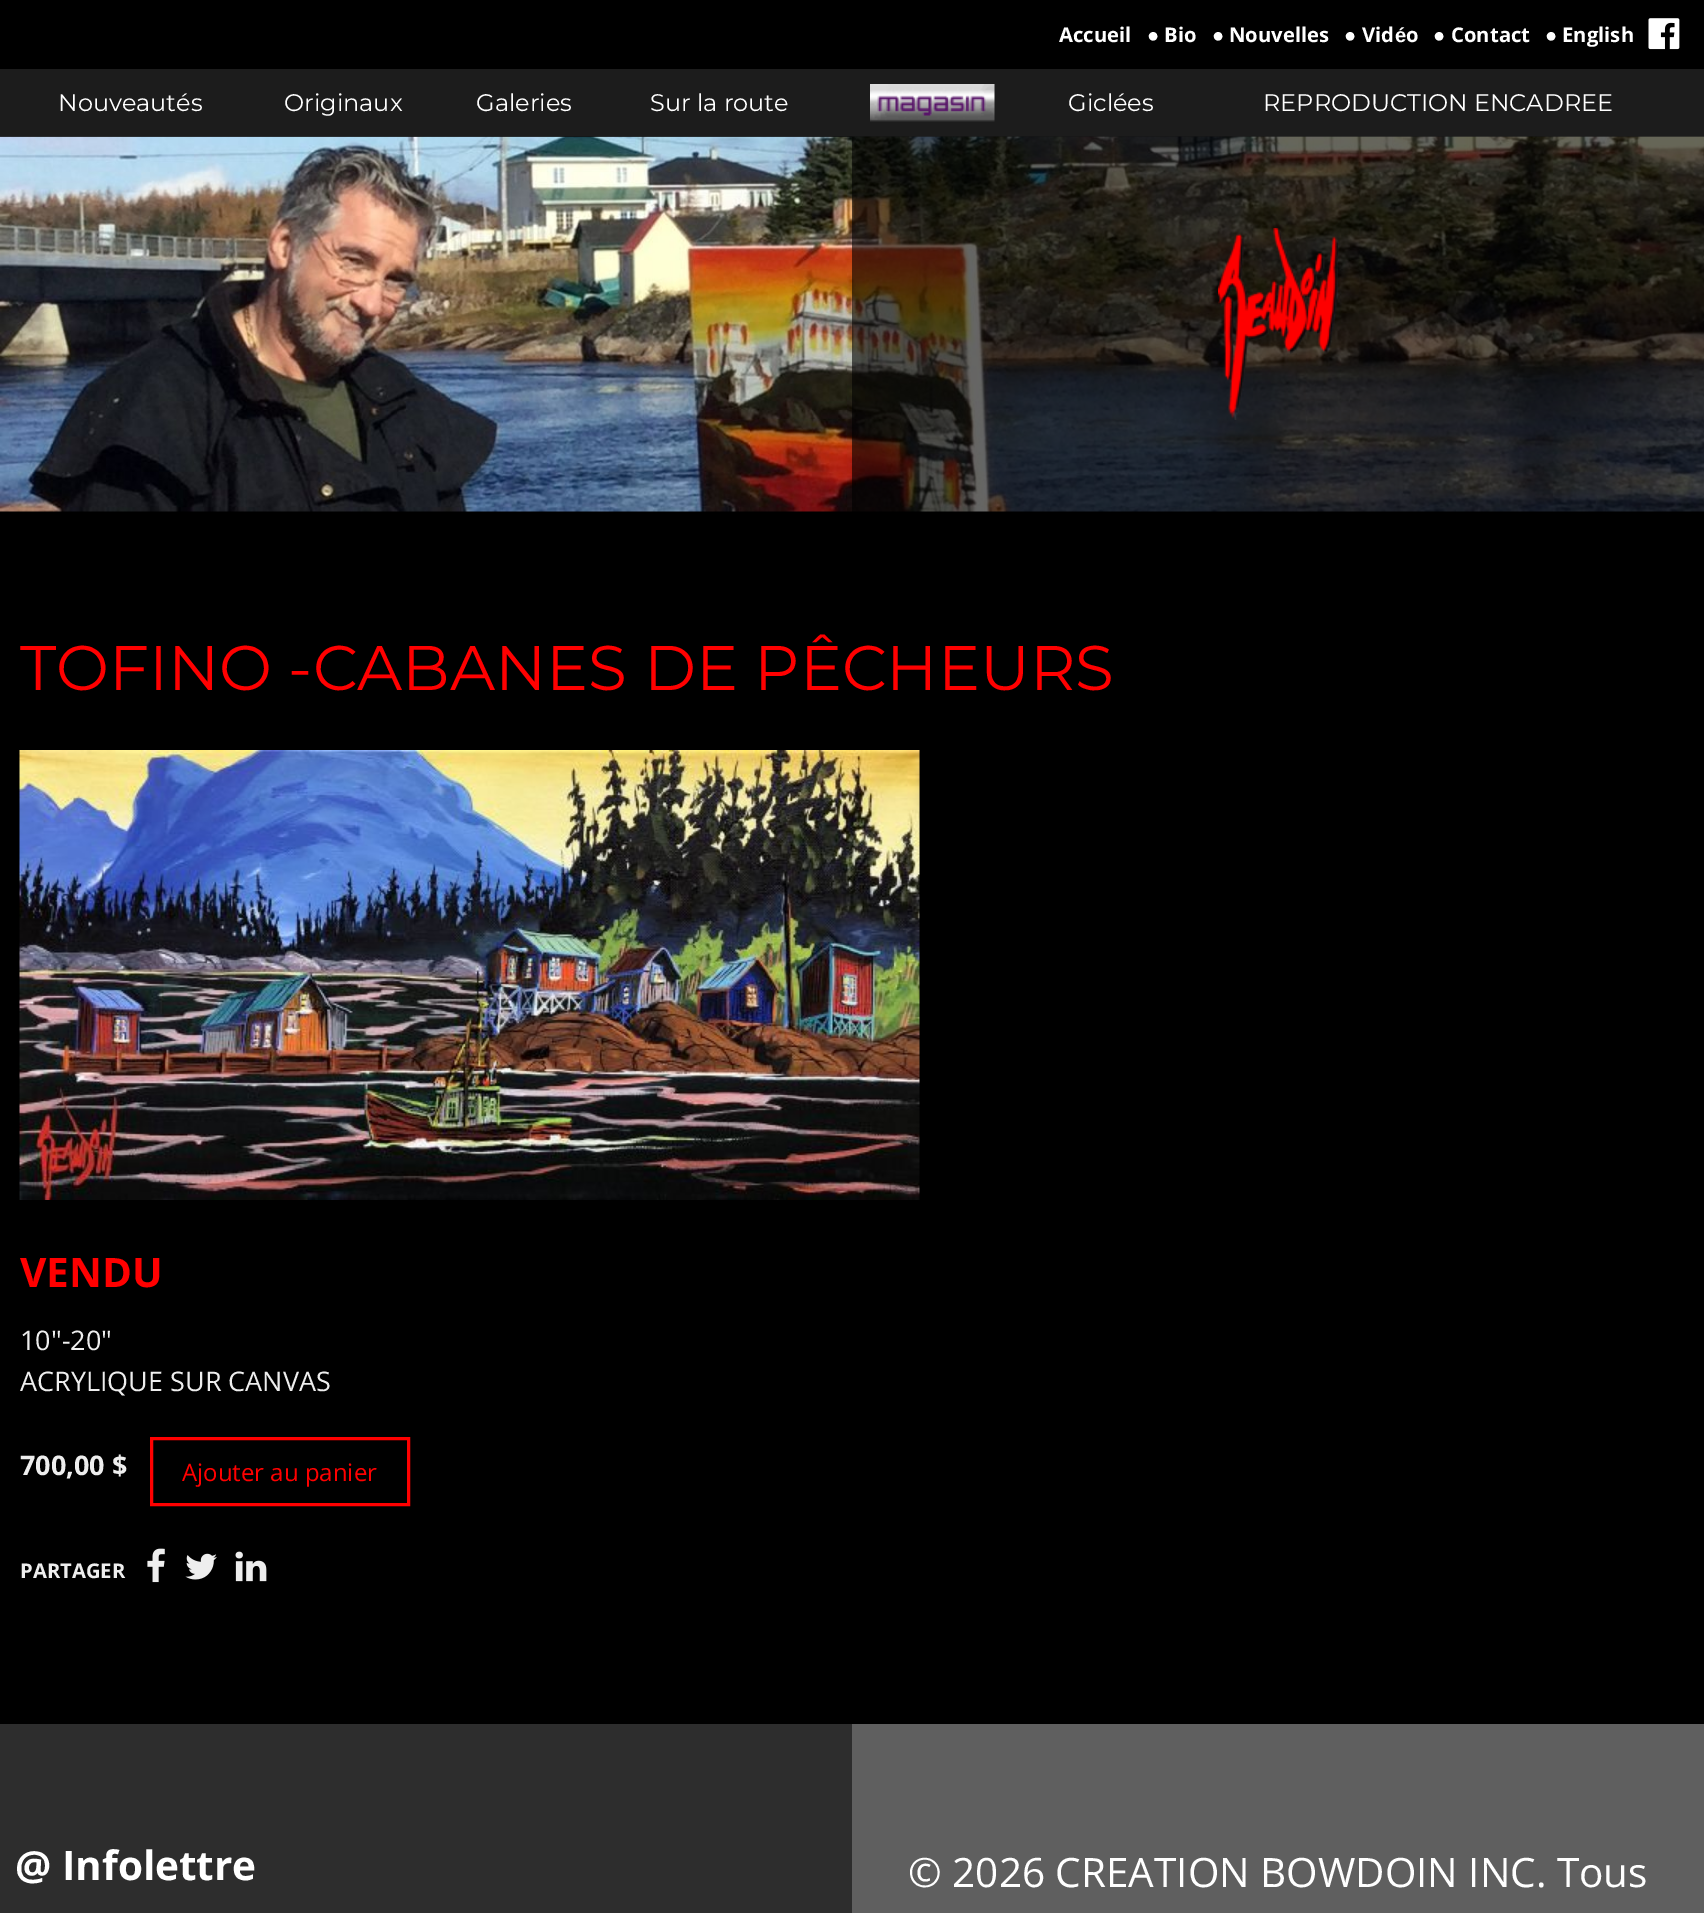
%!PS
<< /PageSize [1704 1913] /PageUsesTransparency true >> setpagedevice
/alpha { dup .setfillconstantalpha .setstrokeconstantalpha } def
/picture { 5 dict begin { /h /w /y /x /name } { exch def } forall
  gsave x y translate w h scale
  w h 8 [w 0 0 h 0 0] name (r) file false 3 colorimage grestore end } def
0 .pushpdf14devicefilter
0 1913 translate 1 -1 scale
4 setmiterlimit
0 setgray
0 0 1704 1913 rectfill
/OpenSans-Bold [20.25 0 0 -20.25 0 0] selectfont
1 setgray
1059 42 moveto (Accueil) show
/LiberationSans-Bold [20.25 0 0 -20.25 0 0] selectfont
1147 42 moveto (●) show
/OpenSans-Bold [20.25 0 0 -20.25 0 0] selectfont
1164 42 moveto (Bio) show
/LiberationSans-Bold [20.25 0 0 -20.25 0 0] selectfont
1212 42 moveto (●) show
/OpenSans-Bold [20.25 0 0 -20.25 0 0] selectfont
1229 42 moveto (Nouvelles) show
/LiberationSans-Bold [20.25 0 0 -20.25 0 0] selectfont
1344 42 moveto (●) show
/OpenSans-Bold [20.25 0 0 -20.25 0 0] selectfont
1362 42 moveto (Vid) show
/LiberationSans-Bold [20.25 0 0 -20.25 0 0] selectfont
1395 42 moveto (é) show
/OpenSans-Bold [20.25 0 0 -20.25 0 0] selectfont
1406 42 moveto (o) show
/LiberationSans-Bold [20.25 0 0 -20.25 0 0] selectfont
1433 42 moveto (●) show
/OpenSans-Bold [20.25 0 0 -20.25 0 0] selectfont
1451 42 moveto (Contact) show
/LiberationSans-Bold [20.25 0 0 -20.25 0 0] selectfont
1545 42 moveto (●) show
/OpenSans-Bold [20.25 0 0 -20.25 0 0] selectfont
1562 42 moveto (English) show
(img1.rgb) 1648 18 32 32 picture
0.373 setgray
0 69 1704 68 rectfill
(img3.rgb) 0 136 1704 376 picture
0.7 alpha
0 setgray
0 69 1704 68 rectfill
/Montserrat-Regular [24 0 0 -24 0 0] selectfont
1 alpha
1 setgray
58 111 moveto (Nouveautés) show
284 111 moveto (Originaux) show
476 111 moveto (Galeries) show
650 111 moveto (Sur la route) show
(img2.rgb) 870 84 125 38 picture
1068 111 moveto (Giclées) show
1263 111 moveto (REPRODUCTION ENCADREE) show
0.6 alpha
0 setgray
852 137 852 375 rectfill
1 alpha
(img4.rgb) 1218 228 120 192 picture
/Montserrat-Regular [63 0 0 -63 0 0] selectfont
1 0 0 setrgbcolor
20 690 moveto (TOFINO -CABANES DE PÊCHEURS) show
(img5.rgb) 19 750 901 450 picture
/OpenSans-Bold [40.5 0 0 -40.5 0 0] selectfont
20 1287 moveto (VENDU) show
/OpenSans-Regular [27 0 0 -27 0 0] selectfont
0.933 setgray
20 1350 moveto (10"-20") show
20 1391 moveto (ACRYLIQUE SUR CANVAS) show
/OpenSans-Bold [27 0 0 -27 0 0] selectfont
20 1475 moveto (700,00 $) show
1 0 0 setrgbcolor
3 setlinewidth
151.5 1438.5 257 66 rectstroke
/OpenSans-Regular [24 0 0 -24 0 0] selectfont
182 1481 moveto (Ajouter au panier) show
/OpenSans-Bold [20.25 0 0 -20.25 0 0] selectfont
0.933 setgray
20 1578 moveto (PARTAGER) show
(img6.rgb) 147 1548 18 35 picture
(img7.rgb) 185 1553 32 27 picture
(img8.rgb) 235 1551 32 31 picture
0.176 setgray
0 1724 852 189 rectfill
/OpenSans-Bold [40.5 0 0 -40.5 0 0] selectfont
1 setgray
15 1880 moveto (@ Infolettre) show
0.373 setgray
852 1724 852 189 rectfill
/OpenSans-Regular [40.5 0 0 -40.5 0 0] selectfont
1 setgray
908 1887 moveto (© 2026 CREATION BOWDOIN INC. Tous) show
.poppdf14devicefilter showpage
